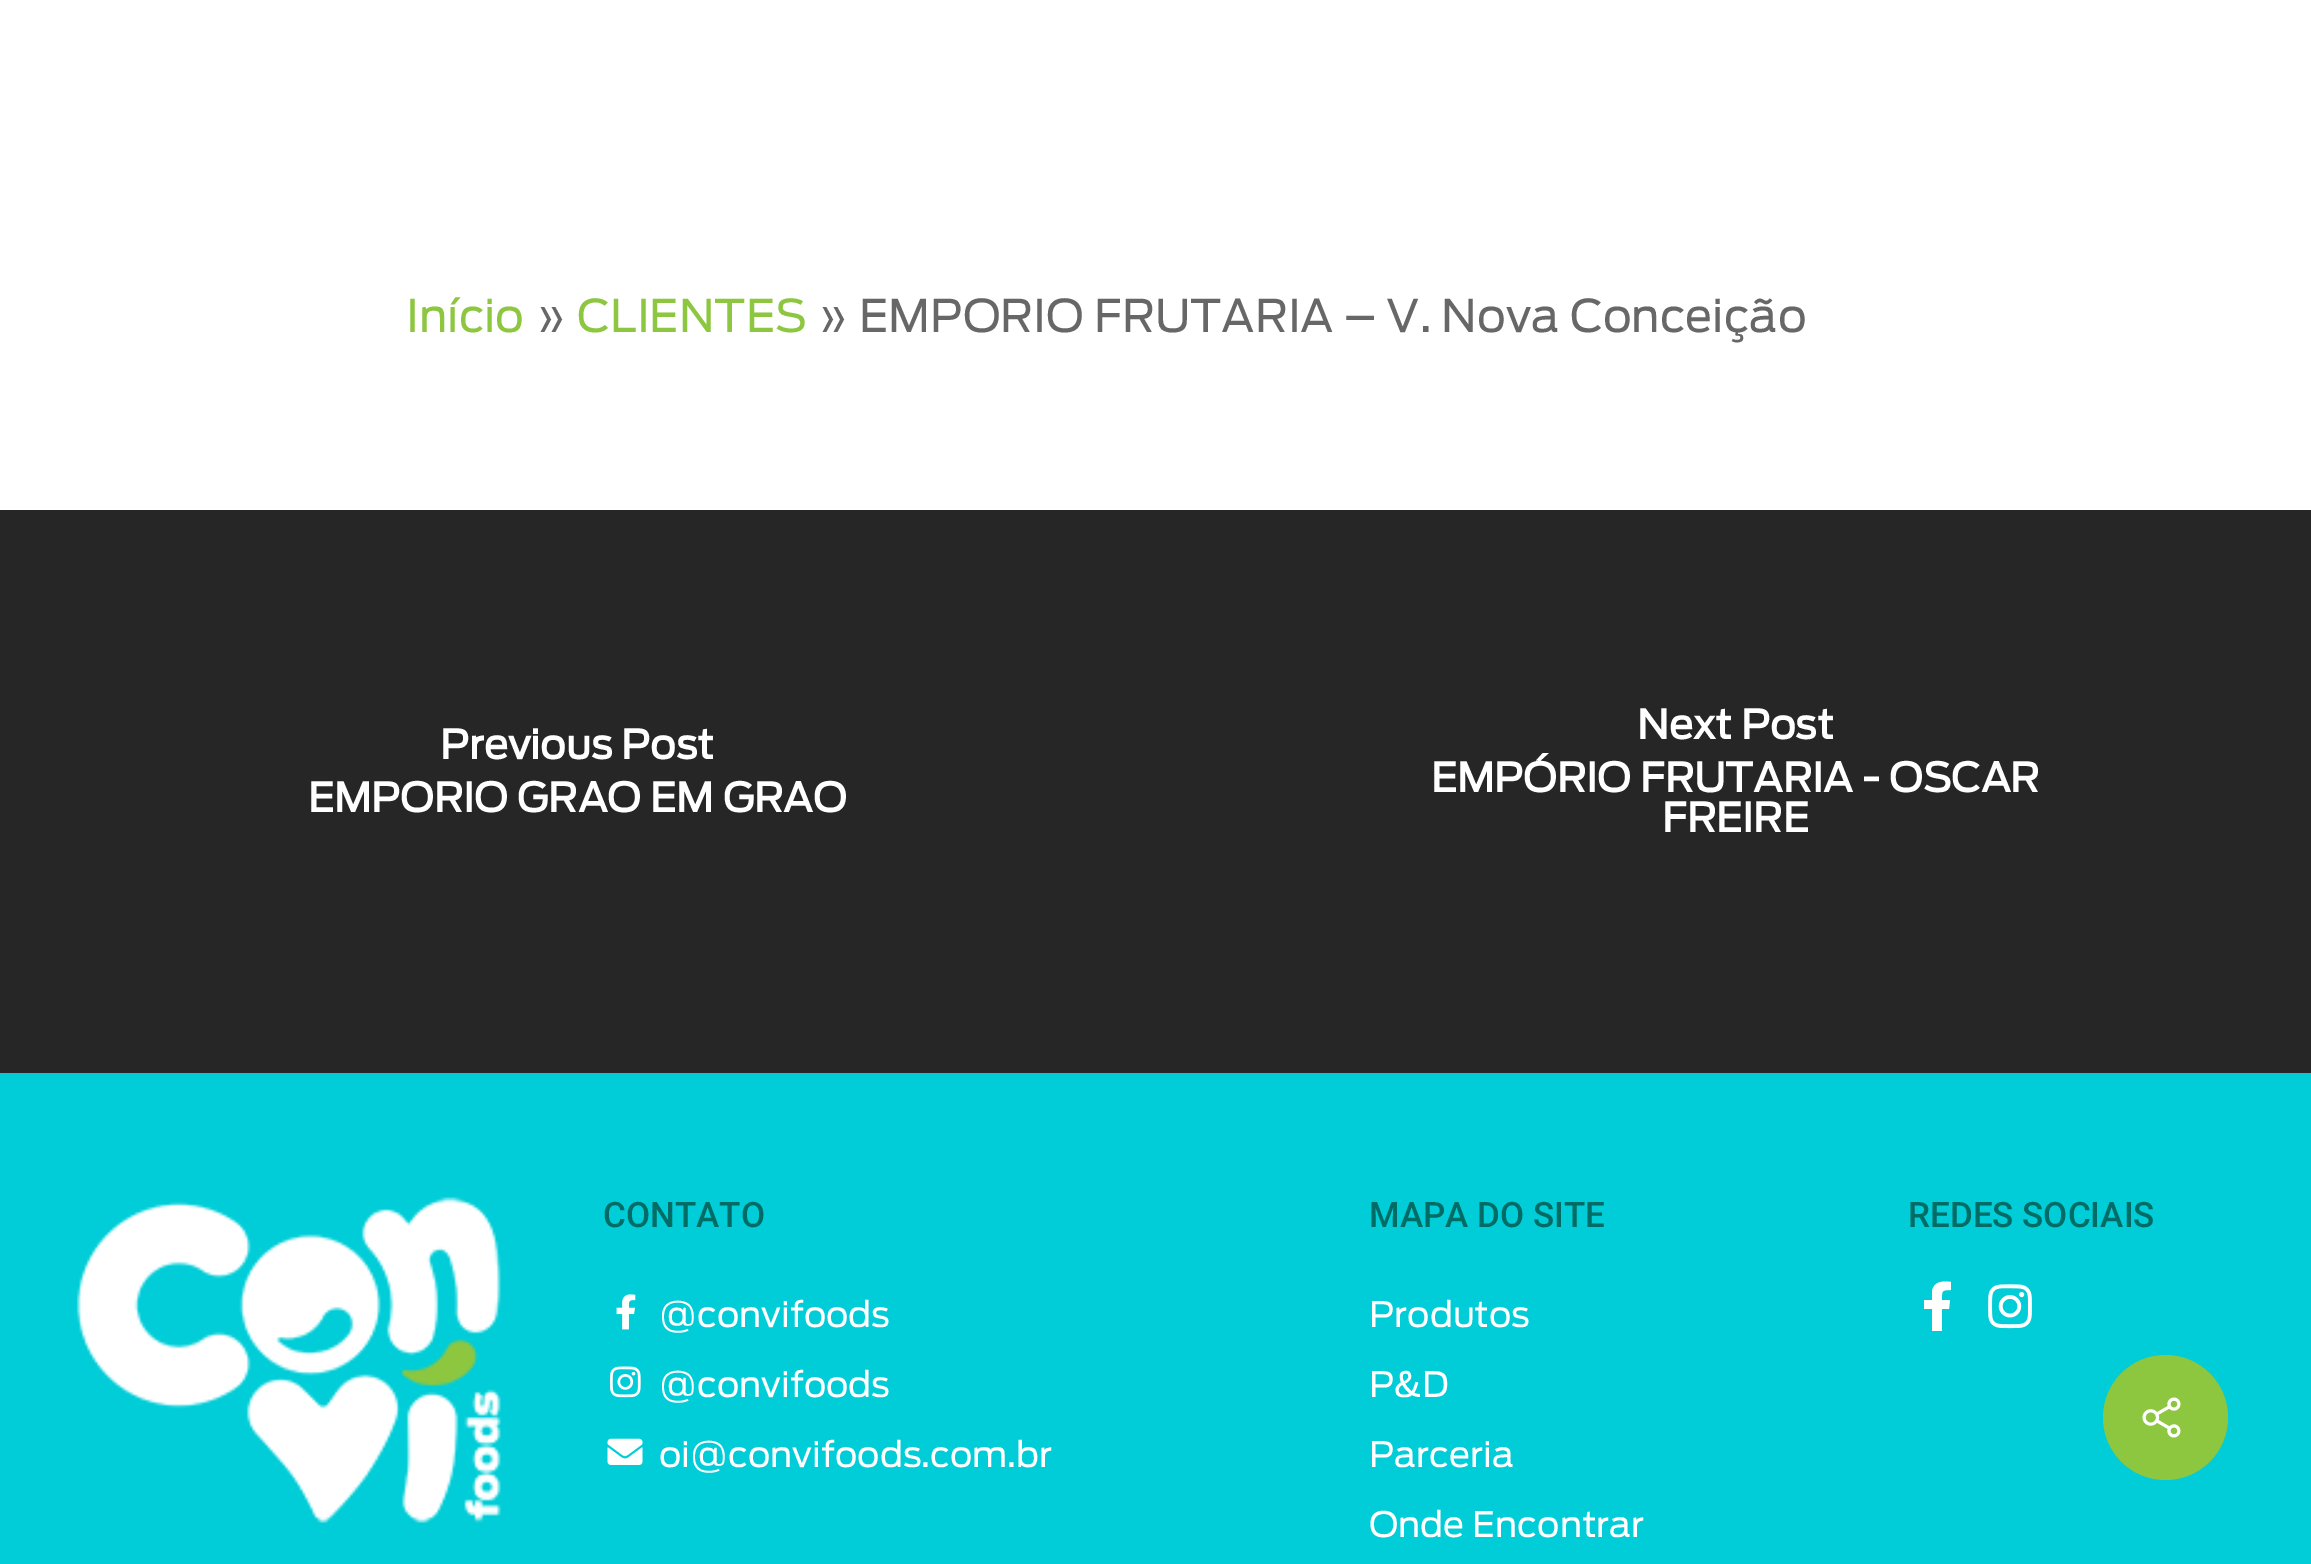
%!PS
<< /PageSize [2311 1564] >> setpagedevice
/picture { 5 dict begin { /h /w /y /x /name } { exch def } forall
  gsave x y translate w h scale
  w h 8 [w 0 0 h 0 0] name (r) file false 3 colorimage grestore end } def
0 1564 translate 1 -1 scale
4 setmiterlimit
1 setgray
0 0 2311 1564 rectfill
/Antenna-Regular [45 0 0 -45 0 0] selectfont
0.553 0.776 0.247 setrgbcolor
406 332 moveto (Início) show
0.404 setgray
535 332 moveto (») show
0.553 0.776 0.247 setrgbcolor
577 332 moveto (CLIENTES) show
0.404 setgray
817 332 moveto (» EMPORIO FRUTARIA – V. Nova Conceição) show
0.149 setgray
0 510 2311 563 rectfill
/Antenna-Bold [40 0 0 -40 0 0] selectfont
1 setgray
440 759 moveto (Previous Post) show
308 812 moveto (EMPORIO GRAO EM GRAO) show
1637 739 moveto (Next Post) show
1431 792 moveto (EMPÓRIO FRUTARIA - OSCAR) show
1662 832 moveto (FREIRE) show
0 0.804 0.843 setrgbcolor
0 1073 2311 491 rectfill
(img1.rgb) 76 1197 425 326 picture
/Roboto-Medium [35 0 0 -35 0 0] selectfont
0 0.424 0.396 setrgbcolor
603 1227 moveto (CONTATO) show
(img2.rgb) 616 1294 20 36 picture
/Antenna-Regular [35 0 0 -35 0 0] selectfont
1 setgray
659 1327 moveto (@convifoods) show
(img3.rgb) 610 1366 31 32 picture
659 1397 moveto (@convifoods) show
(img4.rgb) 607 1438 36 27 picture
659 1467 moveto (oi@convifoods.com.br) show
/Roboto-Medium [35 0 0 -35 0 0] selectfont
0 0.424 0.396 setrgbcolor
1369 1227 moveto (MAPA DO SITE) show
/Antenna-Regular [35 0 0 -35 0 0] selectfont
1 setgray
1369 1327 moveto (Produtos) show
1369 1397 moveto (P&D) show
1369 1467 moveto (Parceria) show
1369 1537 moveto (Onde Encontrar) show
/Roboto-Medium [35 0 0 -35 0 0] selectfont
0 0.424 0.396 setrgbcolor
1908 1227 moveto (REDES SOCIAIS) show
1 setgray
newpath 1949 1309 moveto 1942 1309 lineto 1942 1331 lineto 1932 1331 lineto 1932 1309 lineto 1924 1309 lineto 1924 1300 lineto 1932 1300 lineto 1932 1291 lineto 1934 1281 1943 1281 1951 1282 curveto 1951 1290 lineto 1941 1290 1942 1291 1942 1300 curveto 1950 1300 lineto closepath fill
(img5.rgb) 1988 1284 44 45 picture
0.553 0.776 0.247 setrgbcolor
newpath 2165.5 1417.5 62.5 0 360 arc closepath fill
(img6.rgb) 2142 1397 39 41 picture
showpage
